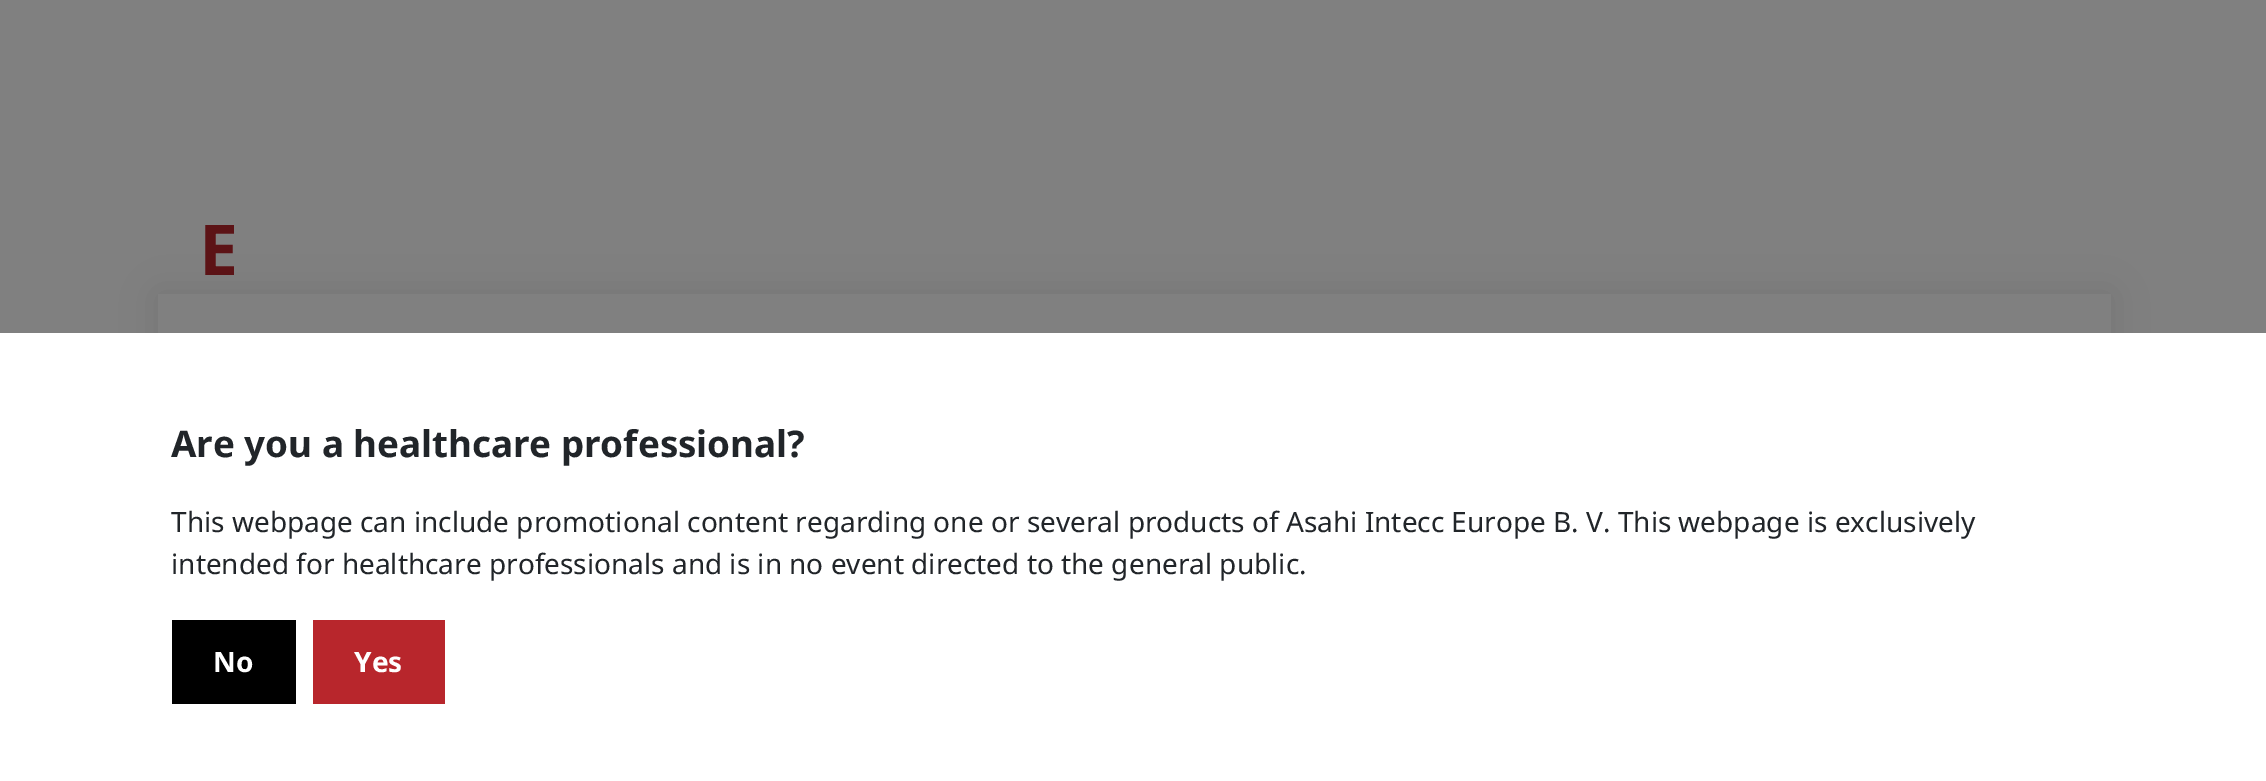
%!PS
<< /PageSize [2266 781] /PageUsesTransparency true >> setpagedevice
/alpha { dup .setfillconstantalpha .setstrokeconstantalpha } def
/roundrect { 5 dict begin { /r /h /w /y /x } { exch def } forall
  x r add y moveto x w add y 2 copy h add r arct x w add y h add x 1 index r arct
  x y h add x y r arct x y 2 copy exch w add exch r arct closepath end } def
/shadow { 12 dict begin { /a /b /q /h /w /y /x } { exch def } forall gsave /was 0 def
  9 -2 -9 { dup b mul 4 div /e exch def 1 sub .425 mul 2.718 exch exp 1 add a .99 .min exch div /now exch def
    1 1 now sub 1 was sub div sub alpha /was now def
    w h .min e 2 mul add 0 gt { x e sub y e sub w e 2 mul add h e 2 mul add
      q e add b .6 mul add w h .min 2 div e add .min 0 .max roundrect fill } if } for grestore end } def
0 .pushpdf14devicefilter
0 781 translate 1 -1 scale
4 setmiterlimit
0.502 setgray
0 0 2266 781 rectfill
/NotoSans-Bold [70 0 0 -70 0 0] selectfont
0.361 0.075 0.086 setrgbcolor
199 275 moveto (E) show
0 setgray
158 294 1953 322 0 17.5 0.1 shadow
0.502 setgray
158 294 1953 39 rectfill
1 setgray
0 333 2266 448 rectfill
/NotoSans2-Bold [36.75 0 0 -36.75 0 0] selectfont
0.129 0.145 0.161 setrgbcolor
171 457 moveto (Are you a healthcare professional?) show
/NotoSans-Regular [28 0 0 -28 0 0] selectfont
171 532 moveto (This webpage can include promotional content regarding one or several products of Asahi Intecc Europe B. V. This webpage is exclusively) show
171 574 moveto (intended for healthcare professionals and is in no event directed to the general public.) show
0 setgray
172 620 124 84 rectfill
/NotoSans2-Bold [28 0 0 -28 0 0] selectfont
1 setgray
213 672 moveto (No) show
0.722 0.149 0.173 setrgbcolor
313 620 132 84 rectfill
1 setgray
354 672 moveto (Yes) show
.poppdf14devicefilter showpage
